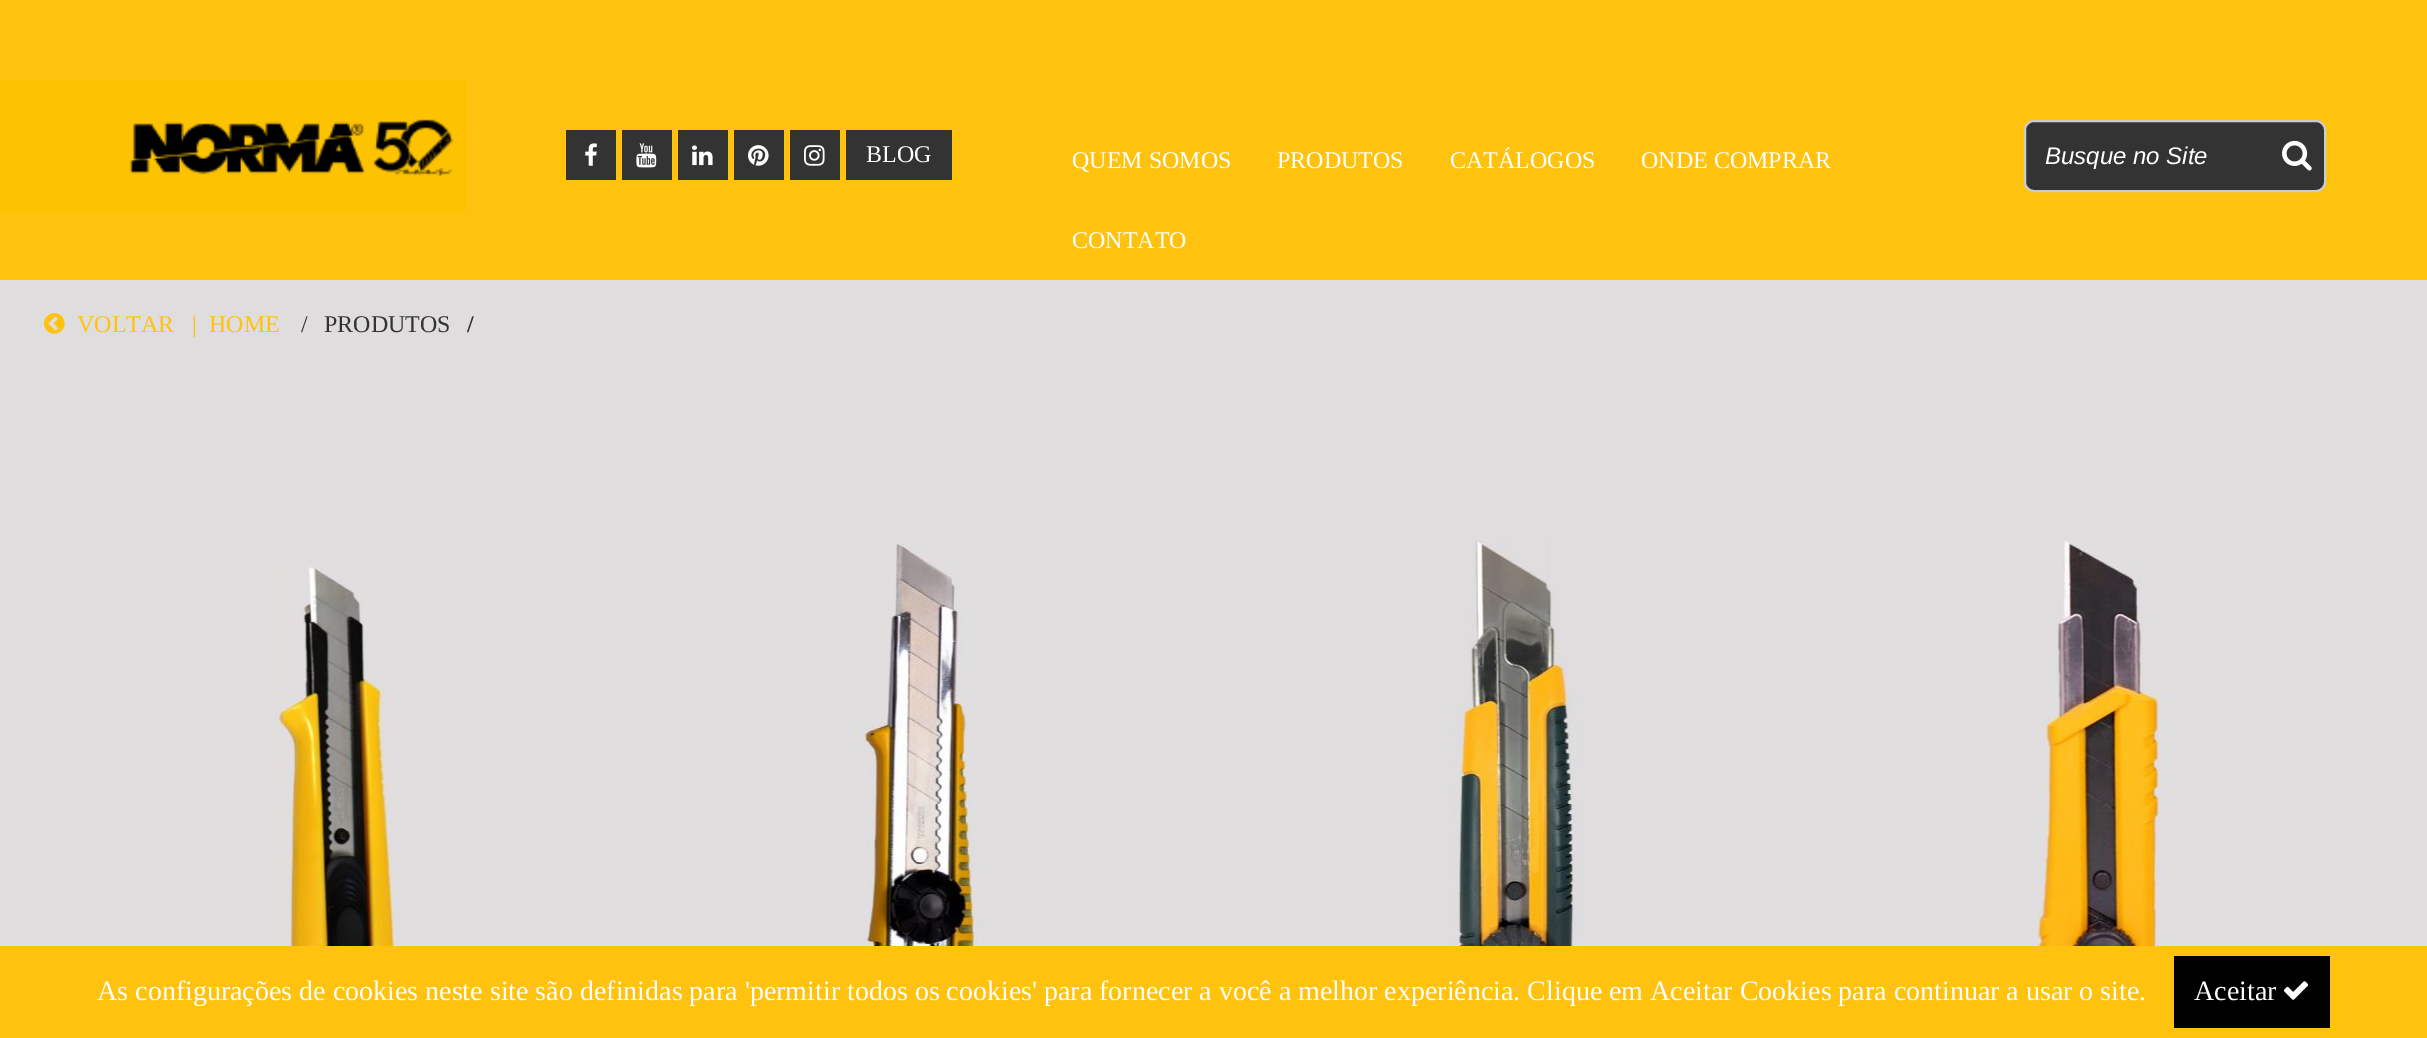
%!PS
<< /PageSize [2427 1038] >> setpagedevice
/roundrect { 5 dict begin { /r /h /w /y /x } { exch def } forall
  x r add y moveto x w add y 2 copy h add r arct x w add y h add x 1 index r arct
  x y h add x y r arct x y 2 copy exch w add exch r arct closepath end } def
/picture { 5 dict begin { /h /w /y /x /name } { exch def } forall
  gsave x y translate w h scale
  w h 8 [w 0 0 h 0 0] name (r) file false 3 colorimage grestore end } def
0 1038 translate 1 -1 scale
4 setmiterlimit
0.875 0.867 0.871 setrgbcolor
0 0 2427 1038 rectfill
1 0.761 0.055 setrgbcolor
0 0 2427 280 rectfill
(img1.rgb) 0 80 466 132 picture
0.2 setgray
566 130 50 50 rectfill
(img2.rgb) 585 143 12 23 picture
622 130 50 50 rectfill
(img3.rgb) 636 143 21 25 picture
678 130 50 50 rectfill
(img4.rgb) 692 145 21 21 picture
734 130 50 50 rectfill
(img5.rgb) 748 145 21 21 picture
790 130 50 50 rectfill
(img6.rgb) 804 145 21 21 picture
846 130 106 50 rectfill
/LiberationSerif-Regular [24 0 0 -24 0 0] selectfont
1 setgray
866 162 moveto (BLOG) show
1072 168 moveto (QUEM SOMOS) show
1277 168 moveto (PRODUTOS) show
1450 168 moveto (CATÁLOGOS) show
1641 168 moveto (ONDE COMPRAR) show
1072 248 moveto (CONTATO) show
0.2 setgray
2025 121 300 70 9 roundrect gsave fill grestore
0.8 setgray
2 setlinewidth
stroke
/LiberationSans-Italic [24 0 0 -24 0 0] selectfont
1 setgray
2045 164 moveto (Busque no Site) show
(img7.rgb) 2282 140 30 31 picture
(img8.rgb) 44 313 21 21 picture
/LiberationSerif-Regular [24 0 0 -24 0 0] selectfont
1 0.761 0.055 setrgbcolor
77 332 moveto (VOLTAR   |) show
209 332 moveto (HOME) show
0.2 setgray
301 332 moveto (/) show
324 332 moveto (PRODUTOS) show
/LiberationSerif-Bold [24 0 0 -24 0 0] selectfont
467 332 moveto (/) show
(img9.rgb) 267 562 130 384 picture
(img10.rgb) 834 541 147 405 picture
(img11.rgb) 1446 540 136 406 picture
(img12.rgb) 2022 540 146 406 picture
1 0.761 0.055 setrgbcolor
0 946 2427 92 rectfill
/LiberationSerif-Regular [28 0 0 -28 0 0] selectfont
1 setgray
97 1000 moveto (As configurações de cookies neste site são definidas para 'permitir todos os cookies' para fornecer a você a melhor experiência. Clique em Aceitar Cookies para continuar a usar o site.) show
0 setgray
2174 956 156 72 rectfill
1 setgray
2194 1000 moveto (Aceitar) show
(img13.rgb) 2283 981 26 19 picture
showpage
